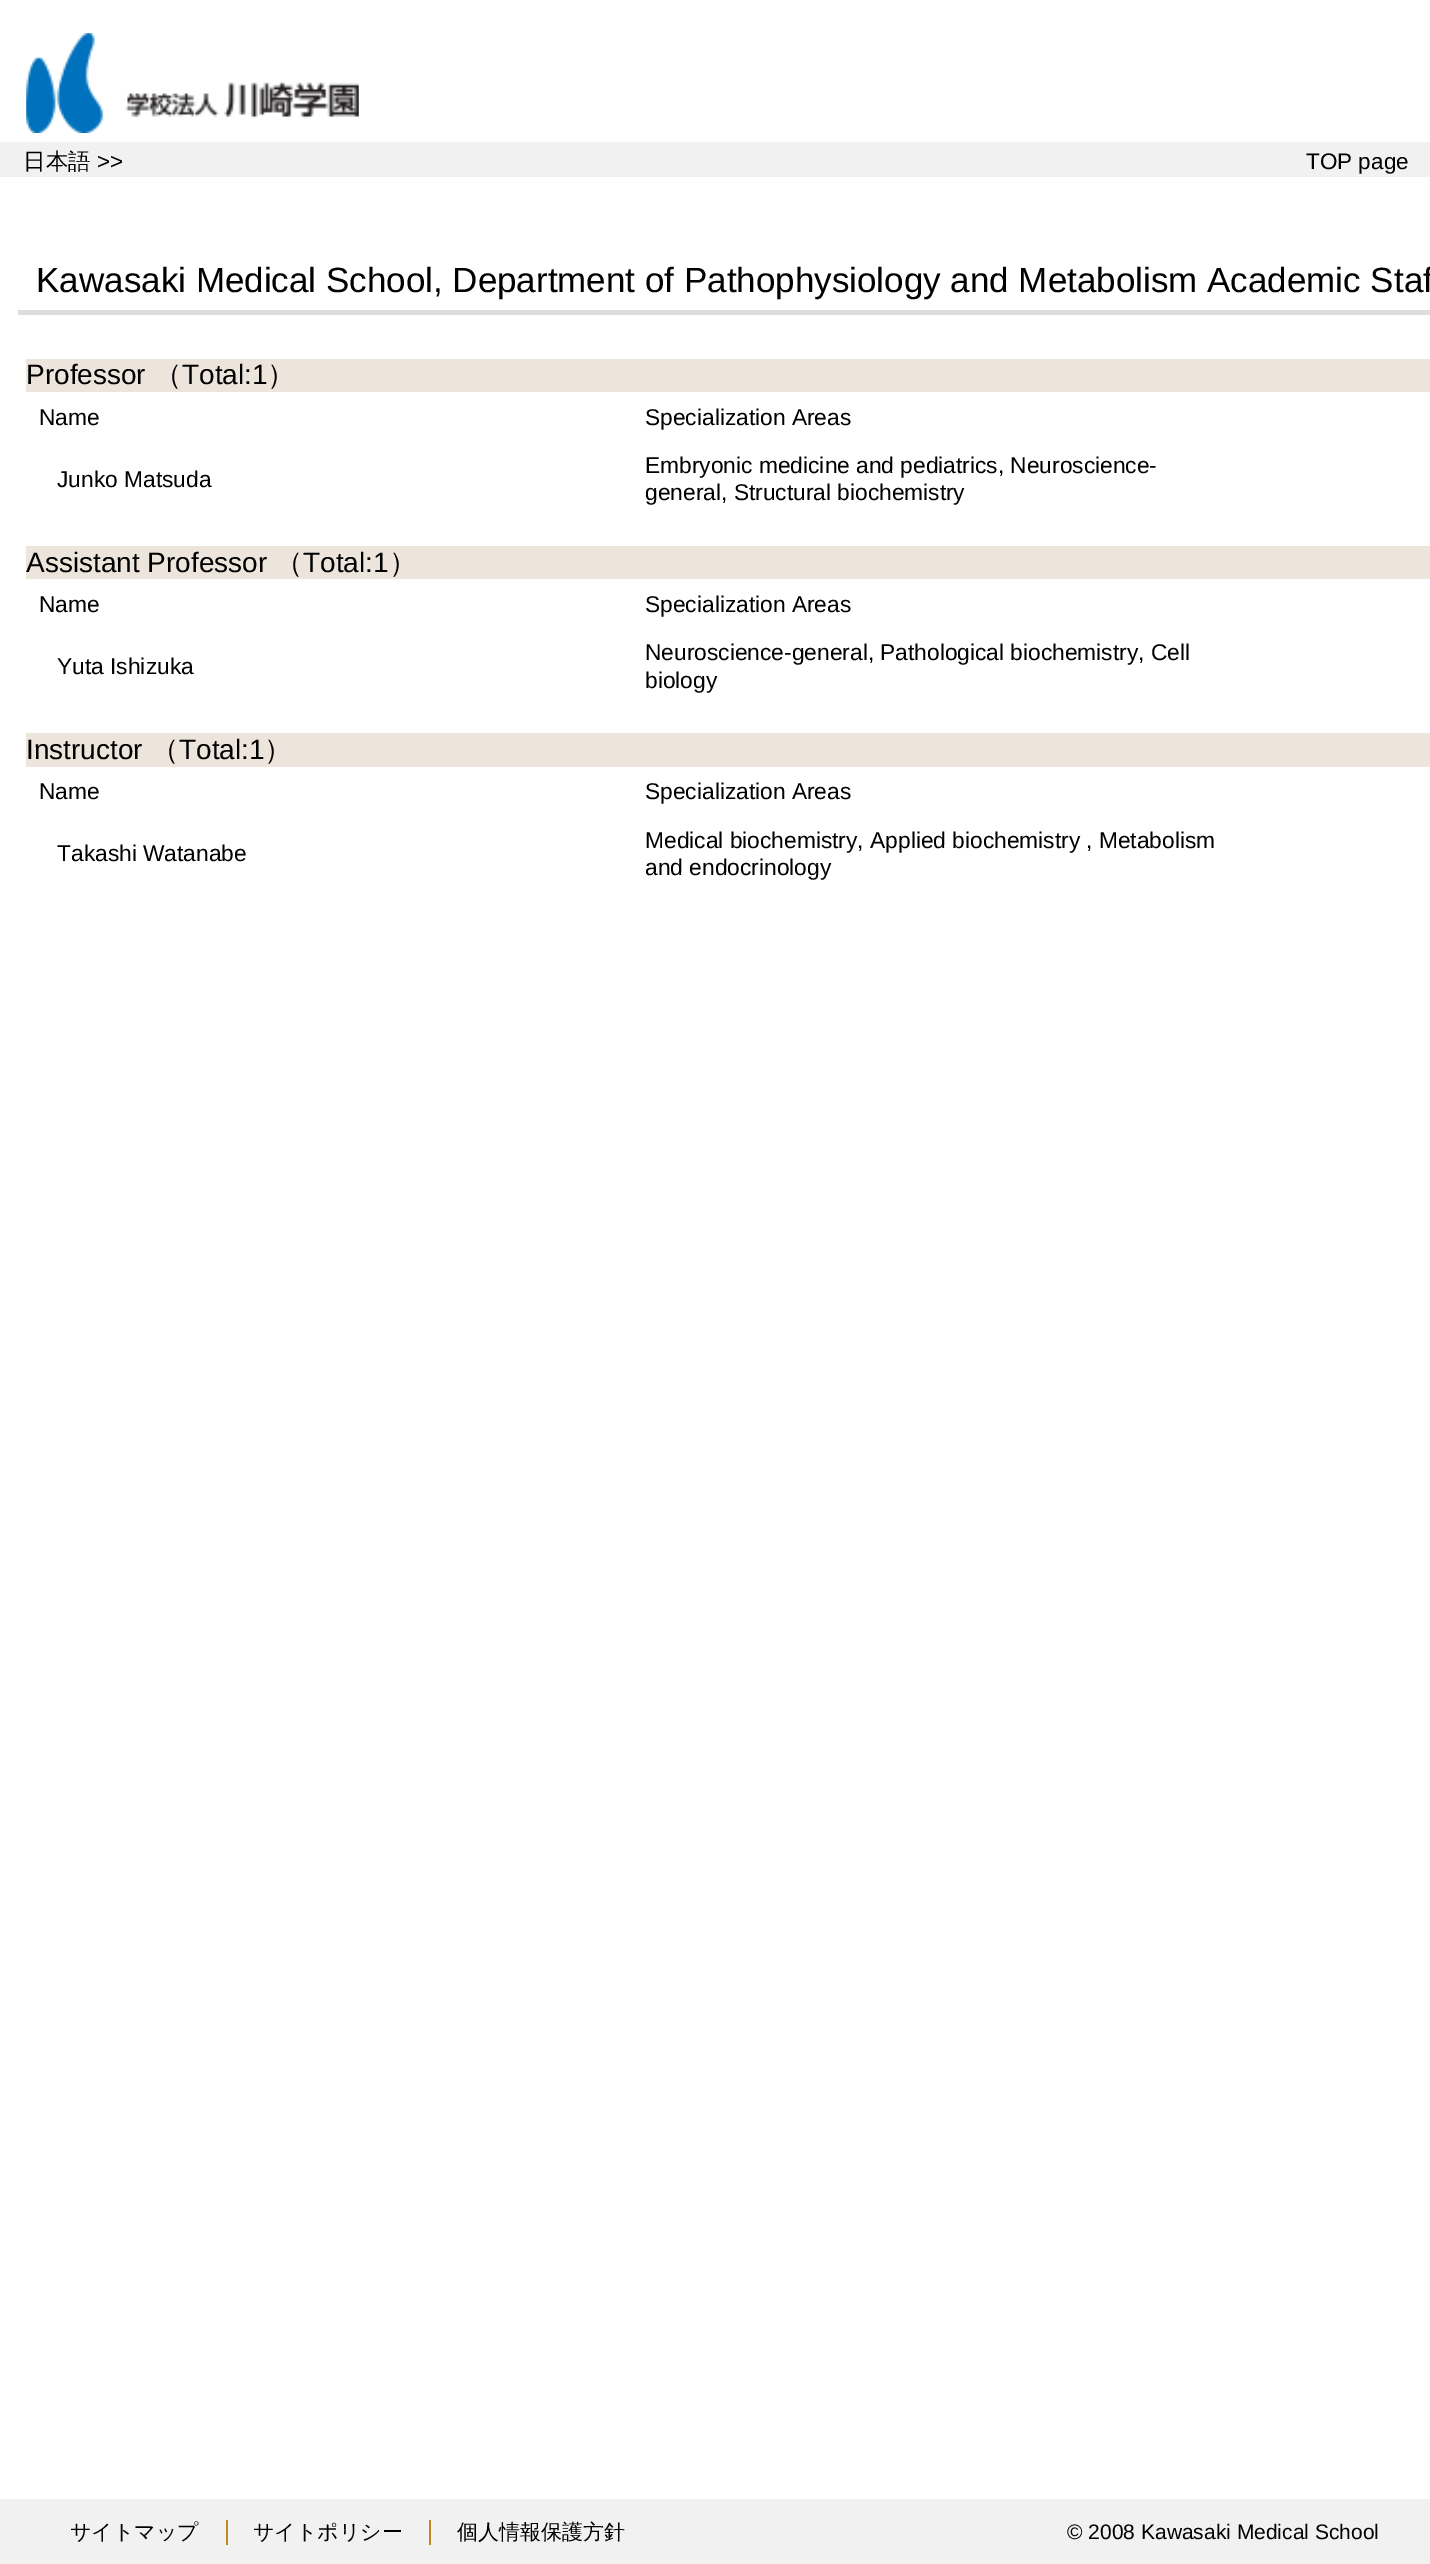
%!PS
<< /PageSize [1430 2564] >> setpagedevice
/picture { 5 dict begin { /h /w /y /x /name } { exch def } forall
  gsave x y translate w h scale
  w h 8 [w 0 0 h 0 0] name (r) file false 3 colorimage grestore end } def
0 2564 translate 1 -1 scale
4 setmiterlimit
1 setgray
0 0 1430 2564 rectfill
(img1.rgb) 26 33 333 100 picture
0.945 setgray
0 142 1430 35 rectfill
/WenQuanYiZenHei-Medium [22.5 0 0 -22.5 0 0] selectfont
0 setgray
23 169 moveto (日本語) show
/LiberationSans-Regular [22.5 0 0 -22.5 0 0] selectfont
97 169 moveto (>>) show
1306 169 moveto (TOP page) show
0.867 setgray
18 310 1412 5 rectfill
/LiberationSans-Regular [35 0 0 -35 0 0] selectfont
0 setgray
36 292 moveto (Kawasaki Medical School, Department of Pathophysiology and Metabolism Academic Staf) show
0.929 0.898 0.859 setrgbcolor
26 359 1404 33 rectfill
/LiberationSans-Regular [28 0 0 -28 0 0] selectfont
0 setgray
26 384 moveto (Professor) show
/WenQuanYiZenHei-Medium [28 0 0 -28 0 0] selectfont
154 384 moveto (（) show
/LiberationSans-Regular [28 0 0 -28 0 0] selectfont
182 384 moveto (Total:1) show
/WenQuanYiZenHei-Medium [28 0 0 -28 0 0] selectfont
267 384 moveto (）) show
/LiberationSans-Regular [22.75 0 0 -22.75 0 0] selectfont
39 425 moveto (Name) show
645 425 moveto (Specialization Areas) show
57 487 moveto (Junko Matsuda) show
645 473 moveto (Embryonic medicine and pediatrics, Neuroscience-) show
645 500 moveto (general, Structural biochemistry) show
0.929 0.898 0.859 setrgbcolor
26 546 1404 33 rectfill
/LiberationSans-Regular [28 0 0 -28 0 0] selectfont
0 setgray
26 572 moveto (Assistant Professor) show
/WenQuanYiZenHei-Medium [28 0 0 -28 0 0] selectfont
275 572 moveto (（) show
/LiberationSans-Regular [28 0 0 -28 0 0] selectfont
303 572 moveto (Total:1) show
/WenQuanYiZenHei-Medium [28 0 0 -28 0 0] selectfont
389 572 moveto (）) show
/LiberationSans-Regular [22.75 0 0 -22.75 0 0] selectfont
39 612 moveto (Name) show
645 612 moveto (Specialization Areas) show
57 674 moveto (Yuta Ishizuka) show
645 660 moveto (Neuroscience-general, Pathological biochemistry, Cell) show
645 688 moveto (biology) show
0.929 0.898 0.859 setrgbcolor
26 733 1404 34 rectfill
/LiberationSans-Regular [28 0 0 -28 0 0] selectfont
0 setgray
26 759 moveto (Instructor) show
/WenQuanYiZenHei-Medium [28 0 0 -28 0 0] selectfont
151 759 moveto (（) show
/LiberationSans-Regular [28 0 0 -28 0 0] selectfont
179 759 moveto (Total:1) show
/WenQuanYiZenHei-Medium [28 0 0 -28 0 0] selectfont
264 759 moveto (）) show
/LiberationSans-Regular [22.75 0 0 -22.75 0 0] selectfont
39 799 moveto (Name) show
645 799 moveto (Specialization Areas) show
57 861 moveto (Takashi Watanabe) show
645 848 moveto (Medical biochemistry, Applied biochemistry , Metabolism) show
645 875 moveto (and endocrinology) show
0.945 setgray
0 2499 1430 65 rectfill
/WenQuanYiZenHei-Medium [21 0 0 -21 0 0] selectfont
0 setgray
70 2539 moveto (サイトマップ) show
0.753 0.533 0.114 setrgbcolor
226 2520 2 25 rectfill
0 setgray
253 2539 moveto (サイトポリシー) show
0.753 0.533 0.114 setrgbcolor
429 2520 2 25 rectfill
0 setgray
457 2539 moveto (個人情報保護方針) show
/LiberationSans-Regular [21 0 0 -21 0 0] selectfont
1067 2539 moveto (© 2008 Kawasaki Medical School) show
showpage
